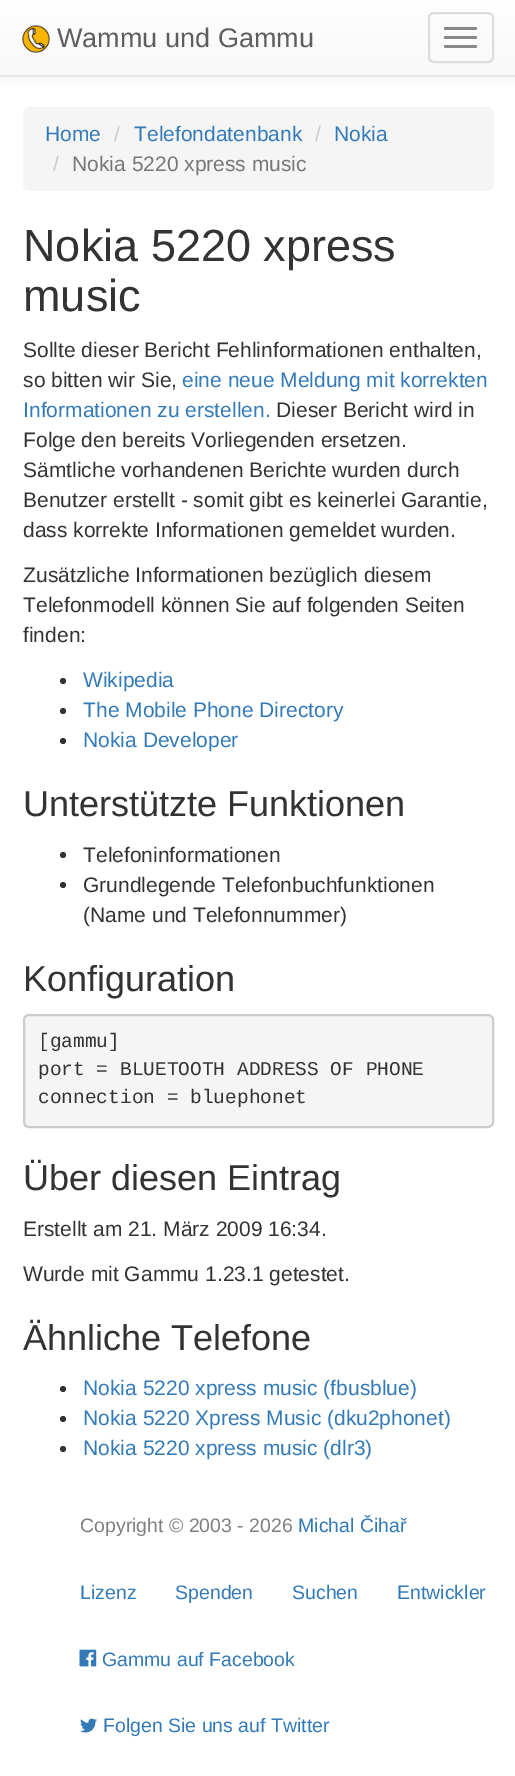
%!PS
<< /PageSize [515 1776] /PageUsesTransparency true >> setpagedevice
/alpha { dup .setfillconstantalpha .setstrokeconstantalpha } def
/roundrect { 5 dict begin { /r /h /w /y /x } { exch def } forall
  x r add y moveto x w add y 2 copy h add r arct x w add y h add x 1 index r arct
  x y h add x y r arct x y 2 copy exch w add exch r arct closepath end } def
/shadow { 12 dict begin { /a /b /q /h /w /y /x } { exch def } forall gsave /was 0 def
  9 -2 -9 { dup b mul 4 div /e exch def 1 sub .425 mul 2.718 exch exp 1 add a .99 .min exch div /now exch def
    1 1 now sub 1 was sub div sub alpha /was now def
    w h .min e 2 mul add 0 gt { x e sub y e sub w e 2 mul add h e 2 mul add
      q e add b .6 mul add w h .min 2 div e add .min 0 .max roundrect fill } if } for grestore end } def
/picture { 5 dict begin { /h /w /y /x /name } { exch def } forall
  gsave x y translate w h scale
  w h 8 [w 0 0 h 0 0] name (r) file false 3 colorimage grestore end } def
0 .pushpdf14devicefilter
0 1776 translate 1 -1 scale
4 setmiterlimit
1 setgray
0 0 515 1776 rectfill
0 setgray
0 2 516 76 0 4 0.07 shadow
gsave newpath 0 0 moveto 515 0 lineto 515 75 lineto 0 75 lineto closepath clip newpath
<< /ShadingType 2 /ColorSpace /DeviceRGB /Coords [258 0 258 75] /Extend [true true] /Function << /FunctionType 2 /Domain [0 1] /C0 [1 1 1] /C1 [0.973 0.973 0.973] /N 1 >> >> shfill grestore
0.906 setgray
0 75 515 2 rectfill
(img1.rgb) 22 25 28 28 picture
/LiberationSans-Regular [27 0 0 -27 0 0] selectfont
0.369 setgray
57 47 moveto (Wammu und Gammu) show
0.867 setgray
2 setlinewidth
429 13 64 49 5 roundrect stroke
0.533 setgray
444 27 33 3 1.5 roundrect fill
444 36 33 3 1.5 roundrect fill
444 45 33 3 1.5 roundrect fill
0.961 setgray
23 107 471 84 6 roundrect fill
/LiberationSans-Regular [21 0 0 -21 0 0] selectfont
0.2 0.478 0.718 setrgbcolor
45 141 moveto (Home) show
0.8 setgray
114 141 moveto (/) show
0.2 0.478 0.718 setrgbcolor
134 141 moveto (Telefondatenbank) show
0.8 setgray
315 141 moveto (/) show
0.2 0.478 0.718 setrgbcolor
334 141 moveto (Nokia) show
0.8 setgray
53 171 moveto (/) show
0.467 setgray
72 171 moveto (Nokia 5220 xpress music) show
/LiberationSans-Regular [45 0 0 -45 0 0] selectfont
0.2 setgray
23 261 moveto (Nokia 5220 xpress) show
23 311 moveto (music) show
/LiberationSans-Regular [21 0 0 -21 0 0] selectfont
23 357 moveto (Sollte dieser Bericht Fehlinformationen enthalten,) show
23 387 moveto (so bitten wir Sie,) show
0.2 0.478 0.718 setrgbcolor
182 387 moveto (eine neue Meldung mit korrekten) show
23 417 moveto (Informationen zu erstellen.) show
0.2 setgray
276 417 moveto (Dieser Bericht wird in) show
23 447 moveto (Folge den bereits Vorliegenden ersetzen.) show
23 477 moveto (Sämtliche vorhandenen Berichte wurden durch) show
23 507 moveto (Benutzer erstellt - somit gibt es keinerlei Garantie,) show
23 537 moveto (dass korrekte Informationen gemeldet wurden.) show
23 582 moveto (Zusätzliche Informationen bezüglich diesem) show
23 612 moveto (Telefonmodell können Sie auf folgenden Seiten) show
23 642 moveto (finden:) show
newpath 63 681 3 0 360 arc closepath fill
0.2 0.478 0.718 setrgbcolor
83 687 moveto (Wikipedia) show
0.2 setgray
newpath 63 711 3 0 360 arc closepath fill
0.2 0.478 0.718 setrgbcolor
83 717 moveto (The Mobile Phone Directory) show
0.2 setgray
newpath 63 741 3 0 360 arc closepath fill
0.2 0.478 0.718 setrgbcolor
83 747 moveto (Nokia Developer) show
/LiberationSans-Regular [36 0 0 -36 0 0] selectfont
0.2 setgray
23 816 moveto (Unterstützte Funktionen) show
newpath 63 855 3 0 360 arc closepath fill
/LiberationSans-Regular [21 0 0 -21 0 0] selectfont
83 862 moveto (Telefoninformationen) show
newpath 63 885 3 0 360 arc closepath fill
83 892 moveto (Grundlegende Telefonbuchfunktionen) show
83 922 moveto (\(Name und Telefonnummer\)) show
/LiberationSans-Regular [36 0 0 -36 0 0] selectfont
23 991 moveto (Konfiguration) show
0.961 setgray
24 1015 469 112 5 roundrect gsave fill grestore
0.8 setgray
stroke
/LiberationMono-Regular [19.5 0 0 -19.5 0 0] selectfont
0.2 setgray
38 1047 moveto ([gammu]) show
38 1075 moveto (port = BLUETOOTH ADDRESS OF PHONE) show
38 1103 moveto (connection = bluephonet) show
/LiberationSans-Regular [36 0 0 -36 0 0] selectfont
23 1190 moveto (Über diesen Eintrag) show
/LiberationSans-Regular [21 0 0 -21 0 0] selectfont
23 1236 moveto (Erstellt am 21. März 2009 16:34.) show
23 1281 moveto (Wurde mit Gammu 1.23.1 getestet.) show
/LiberationSans-Regular [36 0 0 -36 0 0] selectfont
23 1350 moveto (Ähnliche Telefone) show
newpath 63 1389 3 0 360 arc closepath fill
/LiberationSans-Regular [21 0 0 -21 0 0] selectfont
0.2 0.478 0.718 setrgbcolor
83 1395 moveto (Nokia 5220 xpress music \(fbusblue\)) show
0.2 setgray
newpath 63 1419 3 0 360 arc closepath fill
0.2 0.478 0.718 setrgbcolor
83 1425 moveto (Nokia 5220 Xpress Music \(dku2phonet\)) show
0.2 setgray
newpath 63 1449 3 0 360 arc closepath fill
0.2 0.478 0.718 setrgbcolor
83 1455 moveto (Nokia 5220 xpress music \(dlr3\)) show
/LiberationSans-Regular [19.5 0 0 -19.5 0 0] selectfont
0.502 setgray
80 1532 moveto (Copyright © 2003 - 2026) show
0.2 0.478 0.718 setrgbcolor
298 1532 moveto (Michal Čihař) show
80 1599 moveto (Lizenz) show
175 1599 moveto (Spenden) show
292 1599 moveto (Suchen) show
397 1599 moveto (Entwickler) show
(img2.rgb) 79 1649 18 18 picture
102 1666 moveto (Gammu auf Facebook) show
(img3.rgb) 80 1718 17 15 picture
103 1732 moveto (Folgen Sie uns auf Twitter) show
.poppdf14devicefilter showpage
